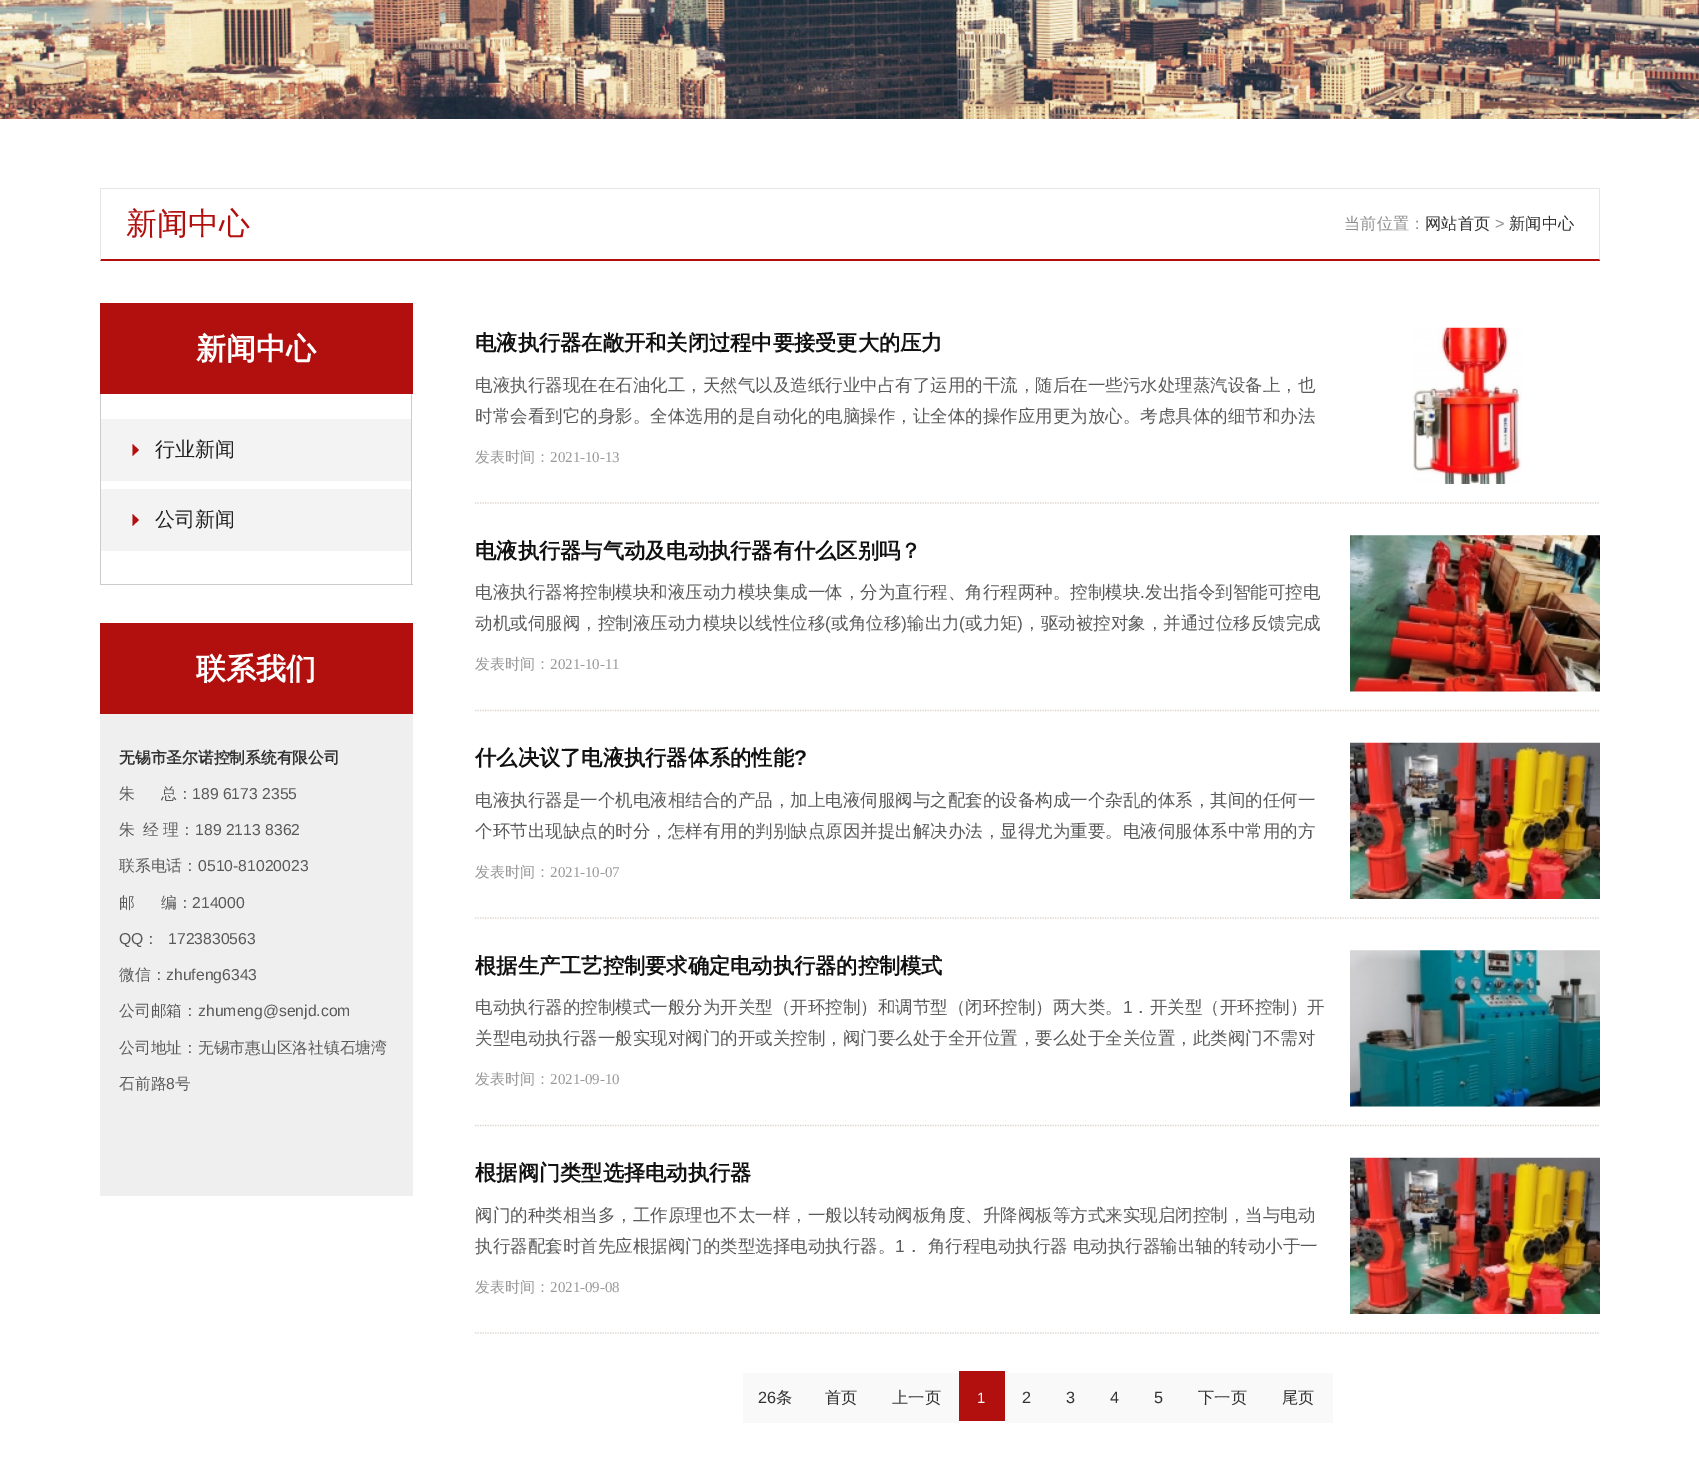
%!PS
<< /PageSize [1699 1469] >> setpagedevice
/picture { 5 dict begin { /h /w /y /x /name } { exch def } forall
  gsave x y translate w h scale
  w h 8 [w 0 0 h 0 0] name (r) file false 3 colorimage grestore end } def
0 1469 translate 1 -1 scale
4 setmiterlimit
1 setgray
0 0 1699 1469 rectfill
(img1.rgb) 0 0 1699 119 picture
0.902 setgray
100 188 1500 1 rectfill
newpath 1600 188 moveto 1600 261 lineto 1599 259 lineto 1599 189 lineto closepath fill
0.698 0.059 0.059 setrgbcolor
newpath 1600 261 moveto 100 261 lineto 101 259 lineto 1599 259 lineto closepath fill
0.902 setgray
newpath 100 261 moveto 100 188 lineto 101 189 lineto 101 259 lineto closepath fill
/WenQuanYiZenHei-Medium [31 0 0 -31 0 0] selectfont
0.698 0.059 0.059 setrgbcolor
126 234 moveto (新闻中心) show
/WenQuanYiZenHei-Medium [16.25 0 0 -16.25 0 0] selectfont
0.557 setgray
1344 229 moveto (当前位置：) show
0.2 setgray
1425 229 moveto (网站首页) show
/LiberationSans-Regular [16.25 0 0 -16.25 0 0] selectfont
0.557 setgray
1495 229 moveto (>) show
/WenQuanYiZenHei-Medium [16.25 0 0 -16.25 0 0] selectfont
0.2 setgray
1509 229 moveto (新闻中心) show
0.698 0.059 0.059 setrgbcolor
100 303 313 91 rectfill
/WenQuanYiZenHei-Bold [30 0 0 -30 0 0] selectfont
1 setgray
196 359 moveto (新闻中心) show
0.8 setgray
411 394 1 191 rectfill
100 584 313 1 rectfill
100 394 1 191 rectfill
0.953 setgray
101 419 310 62 rectfill
0.698 0.059 0.059 setrgbcolor
newpath 132.5 456 moveto 132.5 444 lineto 139 450 lineto closepath fill
/WenQuanYiZenHei-Medium [20 0 0 -20 0 0] selectfont
0.133 setgray
155 456 moveto (行业新闻) show
0.953 setgray
101 489 310 62 rectfill
0.698 0.059 0.059 setrgbcolor
newpath 132.5 526 moveto 132.5 514 lineto 139 520 lineto closepath fill
0.133 setgray
155 526 moveto (公司新闻) show
0.698 0.059 0.059 setrgbcolor
100 623 313 91 rectfill
/WenQuanYiZenHei-Bold [30 0 0 -30 0 0] selectfont
1 setgray
196 679 moveto (联系我们) show
0.937 setgray
100 714 313 482 rectfill
/WenQuanYiZenHei-Bold [15.75 0 0 -15.75 0 0] selectfont
0.2 setgray
119 763 moveto (无锡市圣尔诺控制系统有限公司) show
/WenQuanYiZenHei-Medium [15.75 0 0 -15.75 0 0] selectfont
0.353 setgray
119 799 moveto (朱) show
161 799 moveto (总：) show
/LiberationSans-Regular [15.75 0 0 -15.75 0 0] selectfont
192 799 moveto (189 6173 2355) show
/WenQuanYiZenHei-Medium [15.75 0 0 -15.75 0 0] selectfont
119 835 moveto (朱) show
143 835 moveto (经) show
163 835 moveto (理：) show
/LiberationSans-Regular [15.75 0 0 -15.75 0 0] selectfont
195 835 moveto (189 2113 8362) show
/WenQuanYiZenHei-Medium [15.75 0 0 -15.75 0 0] selectfont
119 871 moveto (联系电话：) show
/LiberationSans-Regular [15.75 0 0 -15.75 0 0] selectfont
198 871 moveto (0510-81020023) show
/WenQuanYiZenHei-Medium [15.75 0 0 -15.75 0 0] selectfont
119 908 moveto (邮) show
161 908 moveto (编：) show
/LiberationSans-Regular [15.75 0 0 -15.75 0 0] selectfont
192 908 moveto (214000) show
119 944 moveto (QQ) show
/WenQuanYiZenHei-Medium [15.75 0 0 -15.75 0 0] selectfont
143 944 moveto (：) show
/LiberationSans-Regular [15.75 0 0 -15.75 0 0] selectfont
168 944 moveto (1723830563) show
/WenQuanYiZenHei-Medium [15.75 0 0 -15.75 0 0] selectfont
119 980 moveto (微信：) show
/LiberationSans-Regular [15.75 0 0 -15.75 0 0] selectfont
166 980 moveto (zhufeng6343) show
/WenQuanYiZenHei-Medium [15.75 0 0 -15.75 0 0] selectfont
119 1016 moveto (公司邮箱：) show
/LiberationSans-Regular [15.75 0 0 -15.75 0 0] selectfont
198 1016 moveto (zhumeng@senjd.com) show
/WenQuanYiZenHei-Medium [15.75 0 0 -15.75 0 0] selectfont
119 1053 moveto (公司地址：无锡市惠山区洛社镇石塘湾) show
119 1089 moveto (石前路) show
/LiberationSans-Regular [15.75 0 0 -15.75 0 0] selectfont
166 1089 moveto (8) show
/WenQuanYiZenHei-Medium [15.75 0 0 -15.75 0 0] selectfont
175 1089 moveto (号) show
0.859 0.831 0.804 setrgbcolor
1.2 setlinewidth
[1.25 1.25] 0 setdash
newpath 475 503 moveto 1600 503 lineto stroke
/WenQuanYiZenHei-Bold [21.25 0 0 -21.25 0 0] selectfont
0.067 setgray
475 350 moveto (电液执行器在敞开和关闭过程中要接受更大的压力) show
/WenQuanYiZenHei-Medium [17.5 0 0 -17.5 0 0] selectfont
0.353 setgray
475 391 moveto (电液执行器现在在石油化工，天然气以及造纸行业中占有了运用的干流，随后在一些污水处理蒸汽设备上，也) show
475 422 moveto (时常会看到它的身影。全体选用的是自动化的电脑操作，让全体的操作应用更为放心。考虑具体的细节和办法) show
/WenQuanYiZenHei-Medium [15 0 0 -15 0 0] selectfont
0.6 setgray
475 462 moveto (发表时间：) show
/LiberationSerif-Regular [15 0 0 -15 0 0] selectfont
550 462 moveto (2021-10-13) show
(img2.rgb) 1412 327 110 157 picture
0.859 0.831 0.804 setrgbcolor
newpath 475 710.5 moveto 1600 710.5 lineto stroke
/WenQuanYiZenHei-Bold [21.25 0 0 -21.25 0 0] selectfont
0.067 setgray
475 558 moveto (电液执行器与气动及电动执行器有什么区别吗？) show
/WenQuanYiZenHei-Medium [17.5 0 0 -17.5 0 0] selectfont
0.353 setgray
475 598 moveto (电液执行器将控制模块和液压动力模块集成一体，分为直行程、角行程两种。控制模块) show
/LiberationSans-Regular [17.5 0 0 -17.5 0 0] selectfont
1140 598 moveto (.) show
/WenQuanYiZenHei-Medium [17.5 0 0 -17.5 0 0] selectfont
1145 598 moveto (发出指令到智能可控电) show
475 629 moveto (动机或伺服阀，控制液压动力模块以线性位移) show
/LiberationSans-Regular [17.5 0 0 -17.5 0 0] selectfont
825 629 moveto (\() show
/WenQuanYiZenHei-Medium [17.5 0 0 -17.5 0 0] selectfont
831 629 moveto (或角位移) show
/LiberationSans-Regular [17.5 0 0 -17.5 0 0] selectfont
901 629 moveto (\)) show
/WenQuanYiZenHei-Medium [17.5 0 0 -17.5 0 0] selectfont
907 629 moveto (输出力) show
/LiberationSans-Regular [17.5 0 0 -17.5 0 0] selectfont
959 629 moveto (\() show
/WenQuanYiZenHei-Medium [17.5 0 0 -17.5 0 0] selectfont
965 629 moveto (或力矩) show
/LiberationSans-Regular [17.5 0 0 -17.5 0 0] selectfont
1017 629 moveto (\)) show
/WenQuanYiZenHei-Medium [17.5 0 0 -17.5 0 0] selectfont
1023 629 moveto (，驱动被控对象，并通过位移反馈完成) show
/WenQuanYiZenHei-Medium [15 0 0 -15 0 0] selectfont
0.6 setgray
475 669 moveto (发表时间：) show
/LiberationSerif-Regular [15 0 0 -15 0 0] selectfont
550 669 moveto (2021-10-11) show
(img3.rgb) 1350 535 250 157 picture
0.859 0.831 0.804 setrgbcolor
newpath 475 918 moveto 1600 918 lineto stroke
/WenQuanYiZenHei-Bold [21.25 0 0 -21.25 0 0] selectfont
0.067 setgray
475 765 moveto (什么决议了电液执行器体系的性能) show
/LiberationSans-Bold [21.25 0 0 -21.25 0 0] selectfont
794 765 moveto (?) show
/WenQuanYiZenHei-Medium [17.5 0 0 -17.5 0 0] selectfont
0.353 setgray
475 806 moveto (电液执行器是一个机电液相结合的产品，加上电液伺服阀与之配套的设备构成一个杂乱的体系，其间的任何一) show
475 837 moveto (个环节出现缺点的时分，怎样有用的判别缺点原因并提出解决办法，显得尤为重要。电液伺服体系中常用的方) show
/WenQuanYiZenHei-Medium [15 0 0 -15 0 0] selectfont
0.6 setgray
475 877 moveto (发表时间：) show
/LiberationSerif-Regular [15 0 0 -15 0 0] selectfont
550 877 moveto (2021-10-07) show
(img4.rgb) 1350 742 250 157 picture
0.859 0.831 0.804 setrgbcolor
newpath 475 1125.5 moveto 1600 1125.5 lineto stroke
/WenQuanYiZenHei-Bold [21.25 0 0 -21.25 0 0] selectfont
0.067 setgray
475 973 moveto (根据生产工艺控制要求确定电动执行器的控制模式) show
/WenQuanYiZenHei-Medium [17.5 0 0 -17.5 0 0] selectfont
0.353 setgray
475 1013 moveto (电动执行器的控制模式一般分为开关型（开环控制）和调节型（闭环控制）两大类。) show
/LiberationSans-Regular [17.5 0 0 -17.5 0 0] selectfont
1123 1013 moveto (1) show
/WenQuanYiZenHei-Medium [17.5 0 0 -17.5 0 0] selectfont
1132 1013 moveto (．开关型（开环控制）开) show
475 1044 moveto (关型电动执行器一般实现对阀门的开或关控制，阀门要么处于全开位置，要么处于全关位置，此类阀门不需对) show
/WenQuanYiZenHei-Medium [15 0 0 -15 0 0] selectfont
0.6 setgray
475 1084 moveto (发表时间：) show
/LiberationSerif-Regular [15 0 0 -15 0 0] selectfont
550 1084 moveto (2021-09-10) show
(img5.rgb) 1350 950 250 157 picture
0.859 0.831 0.804 setrgbcolor
newpath 475 1333 moveto 1600 1333 lineto stroke
/WenQuanYiZenHei-Bold [21.25 0 0 -21.25 0 0] selectfont
0.067 setgray
475 1180 moveto (根据阀门类型选择电动执行器) show
/WenQuanYiZenHei-Medium [17.5 0 0 -17.5 0 0] selectfont
0.353 setgray
475 1221 moveto (阀门的种类相当多，工作原理也不太一样，一般以转动阀板角度、升降阀板等方式来实现启闭控制，当与电动) show
475 1252 moveto (执行器配套时首先应根据阀门的类型选择电动执行器。) show
/LiberationSans-Regular [17.5 0 0 -17.5 0 0] selectfont
895 1252 moveto (1) show
/WenQuanYiZenHei-Medium [17.5 0 0 -17.5 0 0] selectfont
905 1252 moveto (． 角行程电动执行器 电动执行器输出轴的转动小于一) show
/WenQuanYiZenHei-Medium [15 0 0 -15 0 0] selectfont
0.6 setgray
475 1292 moveto (发表时间：) show
/LiberationSerif-Regular [15 0 0 -15 0 0] selectfont
550 1292 moveto (2021-09-08) show
(img6.rgb) 1350 1157 250 157 picture
0.976 setgray
743 1373 216 50 rectfill
/LiberationSans-Regular [16.25 0 0 -16.25 0 0] selectfont
0.2 setgray
758 1403 moveto (26) show
/WenQuanYiZenHei-Medium [16.25 0 0 -16.25 0 0] selectfont
776 1403 moveto (条) show
825 1403 moveto (首页) show
892 1403 moveto (上一页) show
0.698 0.059 0.059 setrgbcolor
959 1371 46 50 rectfill
/LiberationSans-Regular [15 0 0 -15 0 0] selectfont
1 setgray
977 1403 moveto (1) show
0.976 setgray
1005 1373 328 50 rectfill
/LiberationSans-Regular [16.25 0 0 -16.25 0 0] selectfont
0.2 setgray
1022 1403 moveto (2) show
1066 1403 moveto (3) show
1110 1403 moveto (4) show
1154 1403 moveto (5) show
/WenQuanYiZenHei-Medium [16.25 0 0 -16.25 0 0] selectfont
1198 1403 moveto (下一页) show
1282 1403 moveto (尾页) show
showpage
